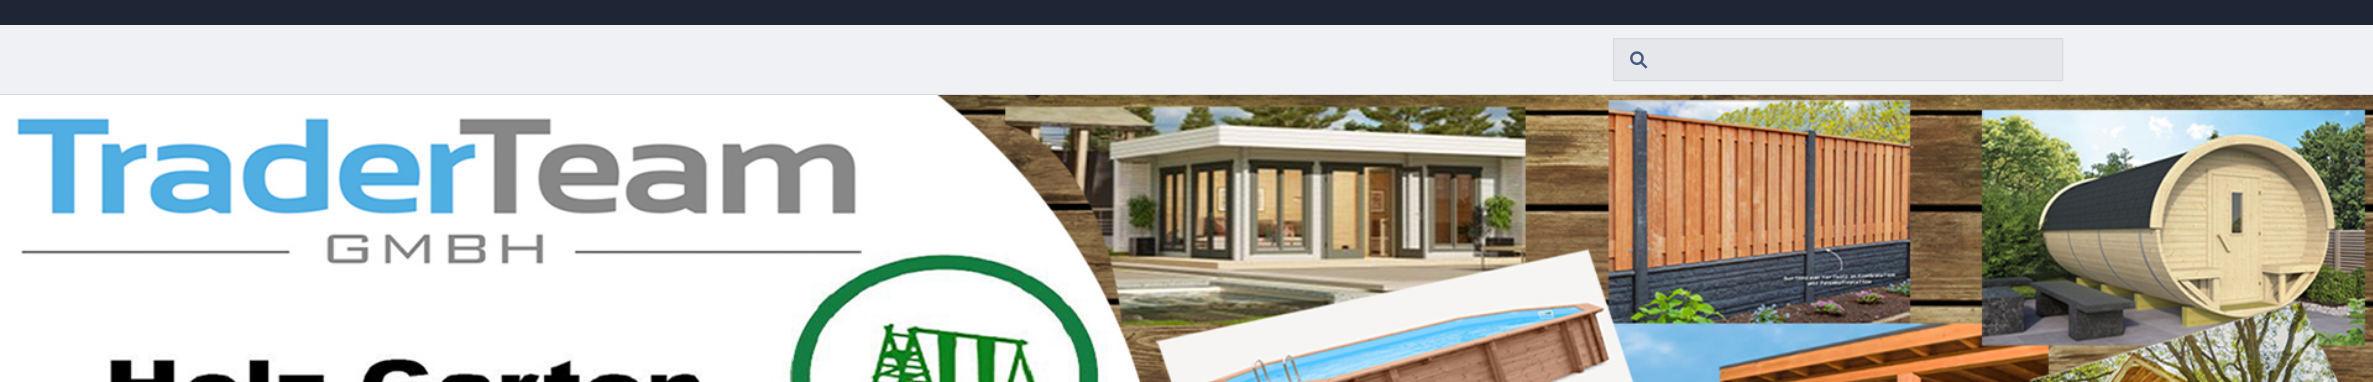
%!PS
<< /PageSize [2373 382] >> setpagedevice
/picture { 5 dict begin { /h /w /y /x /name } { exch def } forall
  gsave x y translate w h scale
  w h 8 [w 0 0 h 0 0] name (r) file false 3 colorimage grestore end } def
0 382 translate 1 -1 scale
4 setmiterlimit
0.118 0.149 0.208 setrgbcolor
0 0 2373 382 rectfill
0.937 0.945 0.957 setrgbcolor
0 25 2373 69 rectfill
0.898 0.906 0.918 setrgbcolor
1614 39 448 41 rectfill
(img1.rgb) 1630 51 18 18 picture
0.851 0.855 0.867 setrgbcolor
1613.5 38.5 449 42 rectstroke
0 94 2373 1 rectfill
(img2.rgb) 0 95 2373 287 picture
showpage
